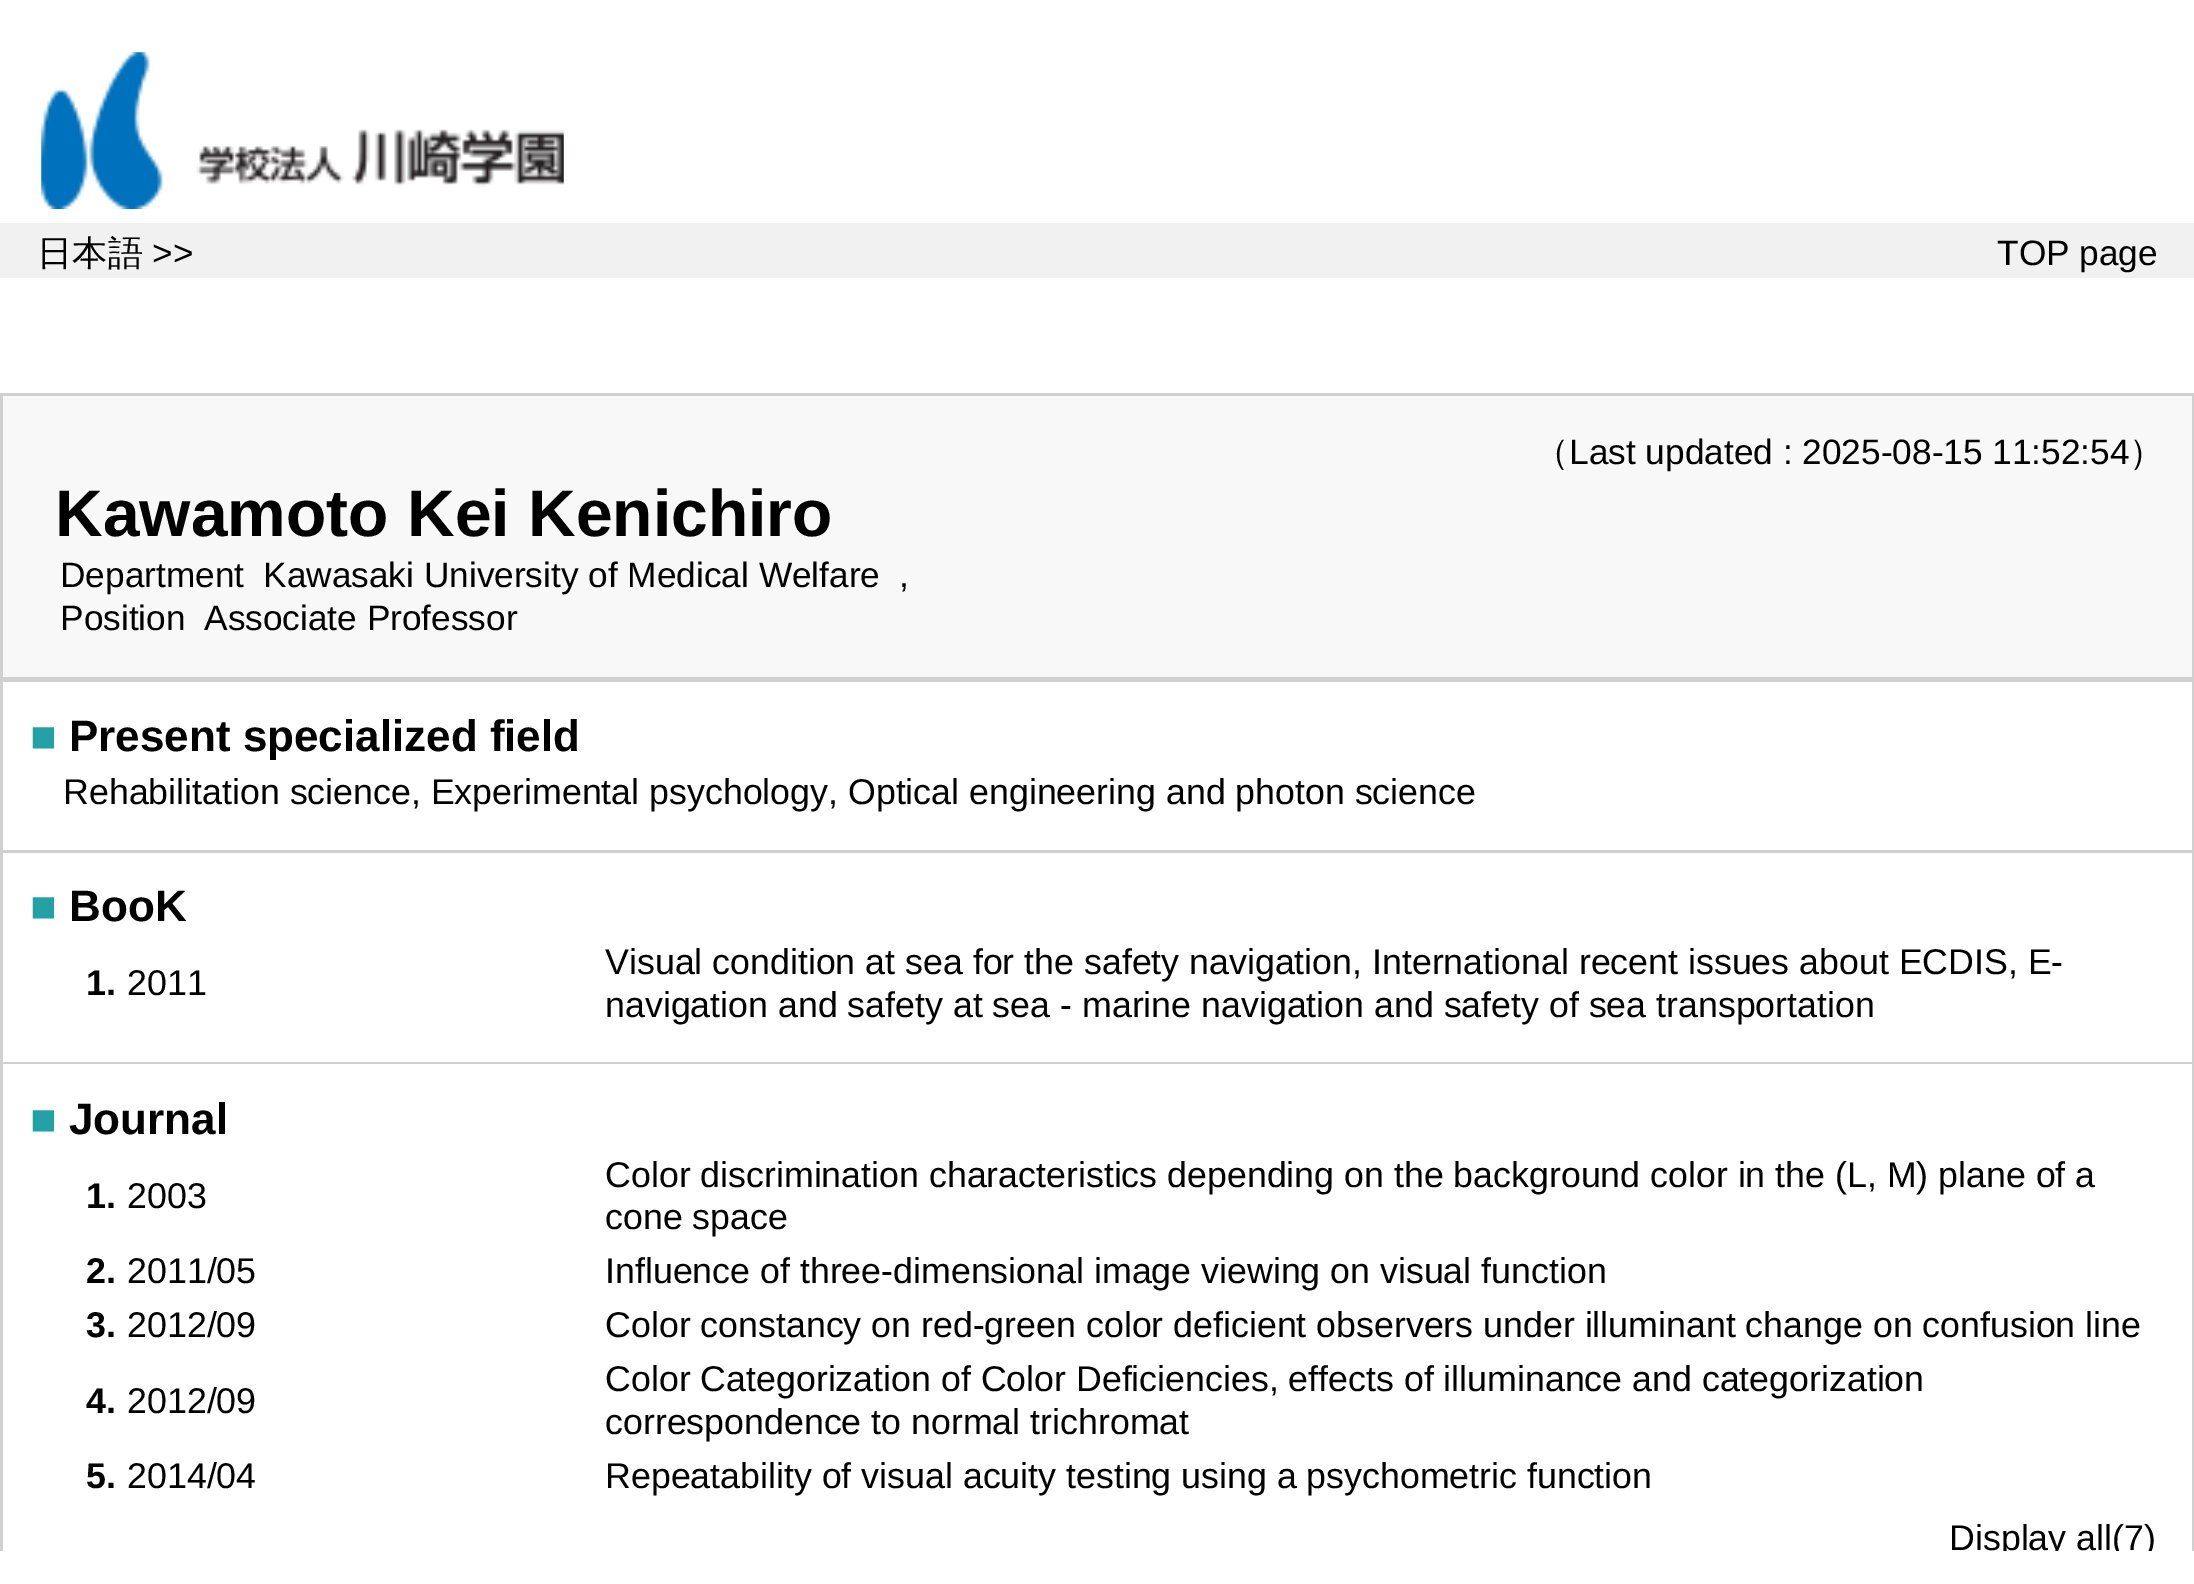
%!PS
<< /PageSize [2194 1584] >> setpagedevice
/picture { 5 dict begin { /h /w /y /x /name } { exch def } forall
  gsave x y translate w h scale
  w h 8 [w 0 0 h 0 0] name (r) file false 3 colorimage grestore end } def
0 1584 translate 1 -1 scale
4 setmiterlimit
1 setgray
0 0 2194 1584 rectfill
(img1.rgb) 41 52 523 157 picture
0.945 setgray
0 223 2194 55 rectfill
/WenQuanYiZenHei-Medium [35.25 0 0 -35.25 0 0] selectfont
0 setgray
37 265 moveto (日本語) show
/LiberationSans-Regular [35.25 0 0 -35.25 0 0] selectfont
152 265 moveto (>>) show
1997 265 moveto (TOP page) show
0.816 setgray
0 393 2194 1158 rectfill
0.973 setgray
3 396 2189 281 rectfill
/WenQuanYiZenHei-Medium [35.25 0 0 -35.25 0 0] selectfont
0 setgray
1534 464 moveto (（) show
/LiberationSans-Regular [35.25 0 0 -35.25 0 0] selectfont
1569 464 moveto (Last updated : 2025-08-15 11:52:54) show
/WenQuanYiZenHei-Medium [35.25 0 0 -35.25 0 0] selectfont
2129 464 moveto (）) show
/LiberationSans-Bold [66 0 0 -66 0 0] selectfont
55 536 moveto (Kawamoto Kei Kenichiro) show
/LiberationSans-Regular [35.25 0 0 -35.25 0 0] selectfont
60 587 moveto (Department) show
263 587 moveto (Kawasaki University of Medical Welfare) show
899 587 moveto (,) show
60 630 moveto (Position) show
204 630 moveto (Associate Professor) show
1 setgray
3 682 2189 168 rectfill
/LiberationSans-Regular [44 0 0 -44 0 0] selectfont
0.141 0.631 0.643 setrgbcolor
30 751 moveto (■) show
/LiberationSans-Bold [44 0 0 -44 0 0] selectfont
0 setgray
69 751 moveto (Present specialized field) show
/LiberationSans-Regular [35.75 0 0 -35.75 0 0] selectfont
63 804 moveto (Rehabilitation science, Experimental psychology, Optical engineering and photon science) show
1 setgray
3 853 2189 209 rectfill
/LiberationSans-Regular [44 0 0 -44 0 0] selectfont
0.141 0.631 0.643 setrgbcolor
30 921 moveto (■) show
/LiberationSans-Bold [44 0 0 -44 0 0] selectfont
0 setgray
69 921 moveto (BooK) show
/LiberationSans-Bold [35.75 0 0 -35.75 0 0] selectfont
86 995 moveto (1.) show
/LiberationSans-Regular [35.75 0 0 -35.75 0 0] selectfont
127 995 moveto (2011) show
605 974 moveto (Visual condition at sea for the safety navigation, International recent issues about ECDIS, E-) show
605 1017 moveto (navigation and safety at sea - marine navigation and safety of sea transportation) show
1 setgray
3 1064 2189 487 rectfill
/LiberationSans-Regular [44 0 0 -44 0 0] selectfont
0.141 0.631 0.643 setrgbcolor
30 1134 moveto (■) show
/LiberationSans-Bold [44 0 0 -44 0 0] selectfont
0 setgray
69 1134 moveto (Journal) show
/LiberationSans-Bold [35.75 0 0 -35.75 0 0] selectfont
86 1208 moveto (1.) show
/LiberationSans-Regular [35.75 0 0 -35.75 0 0] selectfont
127 1208 moveto (2003) show
605 1187 moveto (Color discrimination characteristics depending on the background color in the \(L, M\) plane of a) show
605 1229 moveto (cone space) show
/LiberationSans-Bold [35.75 0 0 -35.75 0 0] selectfont
86 1283 moveto (2.) show
/LiberationSans-Regular [35.75 0 0 -35.75 0 0] selectfont
127 1283 moveto (2011/05) show
605 1283 moveto (Influence of three-dimensional image viewing on visual function) show
/LiberationSans-Bold [35.75 0 0 -35.75 0 0] selectfont
86 1337 moveto (3.) show
/LiberationSans-Regular [35.75 0 0 -35.75 0 0] selectfont
127 1337 moveto (2012/09) show
605 1337 moveto (Color constancy on red-green color deficient observers under illuminant change on confusion line) show
/LiberationSans-Bold [35.75 0 0 -35.75 0 0] selectfont
86 1413 moveto (4.) show
/LiberationSans-Regular [35.75 0 0 -35.75 0 0] selectfont
127 1413 moveto (2012/09) show
605 1391 moveto (Color Categorization of Color Deficiencies, effects of illuminance and categorization) show
605 1434 moveto (correspondence to normal trichromat) show
/LiberationSans-Bold [35.75 0 0 -35.75 0 0] selectfont
86 1488 moveto (5.) show
/LiberationSans-Regular [35.75 0 0 -35.75 0 0] selectfont
127 1488 moveto (2014/04) show
605 1488 moveto (Repeatability of visual acuity testing using a psychometric function) show
gsave
0 679 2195 872 rectclip
1949 1550 moveto (Display all\(7\)) show
grestore
showpage
